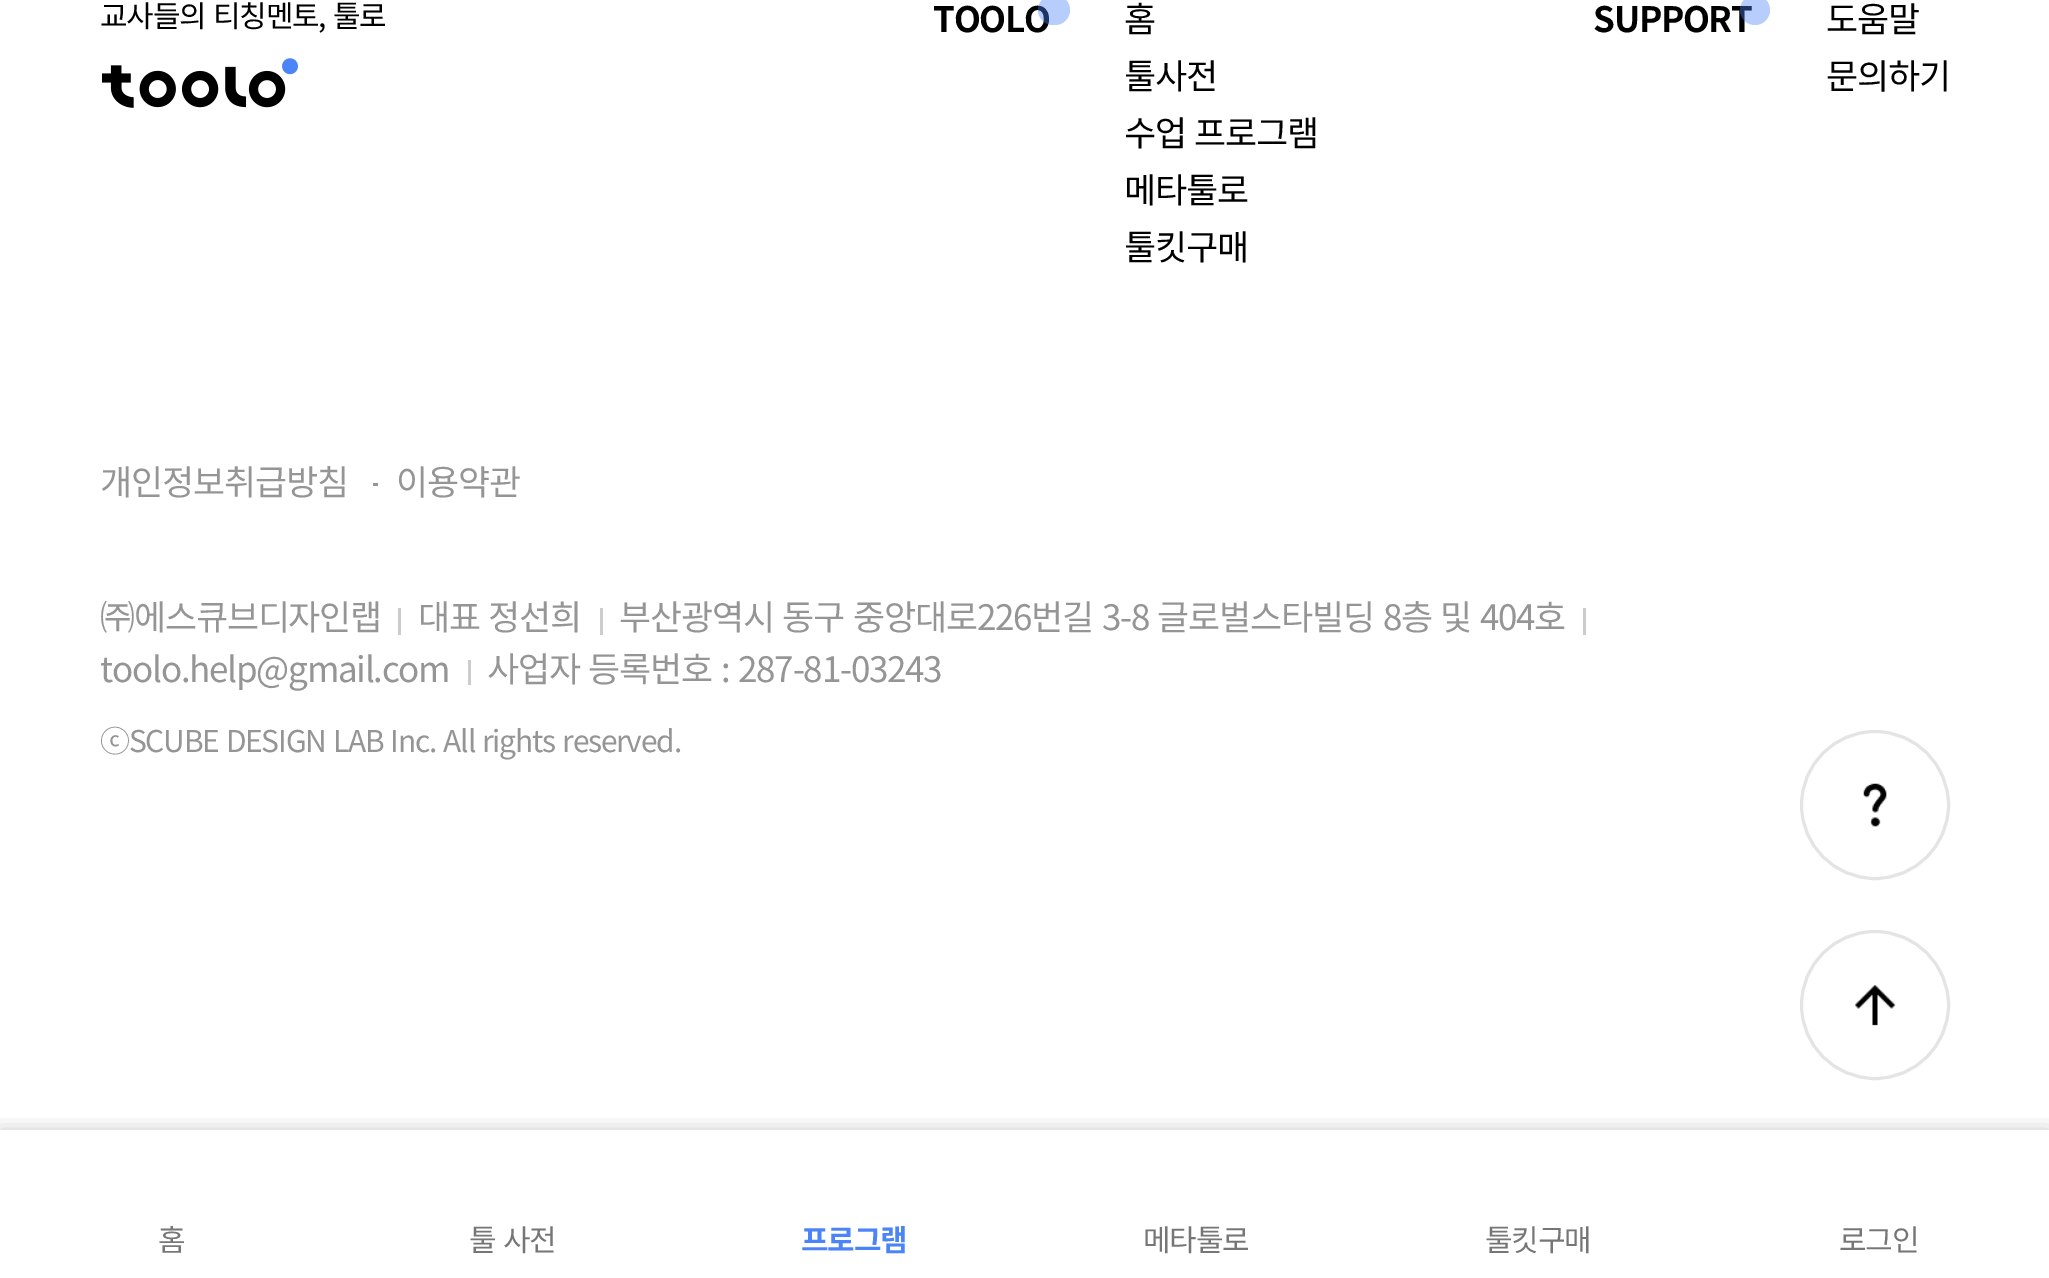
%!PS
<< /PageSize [2049 1278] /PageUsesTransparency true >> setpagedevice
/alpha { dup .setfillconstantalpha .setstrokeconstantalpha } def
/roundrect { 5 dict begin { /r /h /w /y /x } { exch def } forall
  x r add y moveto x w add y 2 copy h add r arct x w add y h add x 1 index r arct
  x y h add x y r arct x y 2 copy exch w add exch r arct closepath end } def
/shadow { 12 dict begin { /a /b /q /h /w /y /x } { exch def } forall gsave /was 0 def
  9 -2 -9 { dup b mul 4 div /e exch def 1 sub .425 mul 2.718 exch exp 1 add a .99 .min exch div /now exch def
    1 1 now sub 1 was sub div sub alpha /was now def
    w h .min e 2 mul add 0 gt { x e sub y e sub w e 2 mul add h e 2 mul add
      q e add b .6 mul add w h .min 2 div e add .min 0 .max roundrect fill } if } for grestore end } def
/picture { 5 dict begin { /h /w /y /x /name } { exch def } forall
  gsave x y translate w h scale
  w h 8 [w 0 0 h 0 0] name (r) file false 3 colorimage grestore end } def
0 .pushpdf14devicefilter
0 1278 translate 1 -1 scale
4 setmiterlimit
1 setgray
0 0 2049 1278 rectfill
/NotoSansKR-Regular [30 0 0 -30 0 0] selectfont
0 setgray
100 27 moveto 2 0 32 -1.25 0 (교사들의 티칭멘토, 툴로) awidthshow
(img1.rgb) 102 58 196 50 picture
/NotoSansKR-Bold [35 0 0 -35 0 0] selectfont
933 32 moveto -1.25 0 (TOOLO) ashow
0.4 alpha
0.294 0.518 0.969 setrgbcolor
1038 -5 32 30 15 roundrect fill
/NotoSansKR-Regular [35 0 0 -35 0 0] selectfont
1 alpha
0 setgray
1124 32 moveto -1.25 0 (홈) ashow
1124 89 moveto -1.25 0 (툴사전) ashow
1124 146 moveto 2 0 32 -1.25 0 (수업 프로그램) awidthshow
1124 203 moveto -1.25 0 (메타툴로) ashow
1124 260 moveto -1.25 0 (툴킷구매) ashow
/NotoSansKR-Bold [35 0 0 -35 0 0] selectfont
1593 32 moveto -1.25 0 (SUPPORT) ashow
0.4 alpha
0.294 0.518 0.969 setrgbcolor
newpath 1755 10 15 0 360 arc closepath fill
/NotoSansKR-Regular [35 0 0 -35 0 0] selectfont
1 alpha
0 setgray
1826 32 moveto -1.25 0 (도움말) ashow
1826 89 moveto -1.25 0 (문의하기) ashow
0.584 setgray
100 495 moveto -1.25 0 (개인정보취급방침) ashow
373 483 5 3 rectfill
396 495 moveto -1.25 0 (이용약관) ashow
100 630 moveto -1.25 0 (㈜에스큐브디자인랩) ashow
0.8 setgray
398 608 3 27 rectfill
0.584 setgray
418 630 moveto 2 0 32 -1.25 0 (대표 정선희) awidthshow
0.8 setgray
600 608 3 27 rectfill
0.584 setgray
619 630 moveto 2 0 32 -1.25 0 (부산광역시 동구 중앙대로226번길 3-8 글로벌스타빌딩 8층 및 404호) awidthshow
0.8 setgray
1583 608 3 27 rectfill
0.584 setgray
100 682 moveto -1.25 0 (toolo.help@gmail.com) ashow
0.8 setgray
468 660 3 25 rectfill
0.584 setgray
487 682 moveto 2 0 32 -1.25 0 (사업자 등록번호 :) awidthshow
738 682 moveto -1.25 0 (287-81-03243) ashow
/NotoSansKR-Regular [30 0 0 -30 0 0] selectfont
100 752 moveto 1.75 0 32 -1.25 0 (ⓒSCUBE DESIGN LAB Inc. All rights reserved.) awidthshow
gsave
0 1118 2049 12 rectclip
0 setgray
0 1130 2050 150 0 9.5 0.2 shadow
grestore
0.894 setgray
3 setlinewidth
newpath 1875 805 73.5 0 360 arc closepath stroke
(img2.rgb) 1863 783 24 44 picture
newpath 1875 1005 73.5 0 360 arc closepath stroke
(img3.rgb) 1854 984 42 42 picture
0.463 setgray
158 1251 moveto -1.25 0 (홈) ashow
469 1251 moveto 2 0 32 -1.25 0 (툴 사전) awidthshow
/NotoSansKR-Bold [30 0 0 -30 0 0] selectfont
0.294 0.518 0.969 setrgbcolor
801 1251 moveto -1.25 0 (프로그램) ashow
/NotoSansKR-Regular [30 0 0 -30 0 0] selectfont
0.463 setgray
1143 1251 moveto -1.25 0 (메타툴로) ashow
1485 1251 moveto -1.25 0 (툴킷구매) ashow
1839 1251 moveto -1.25 0 (로그인) ashow
.poppdf14devicefilter showpage
